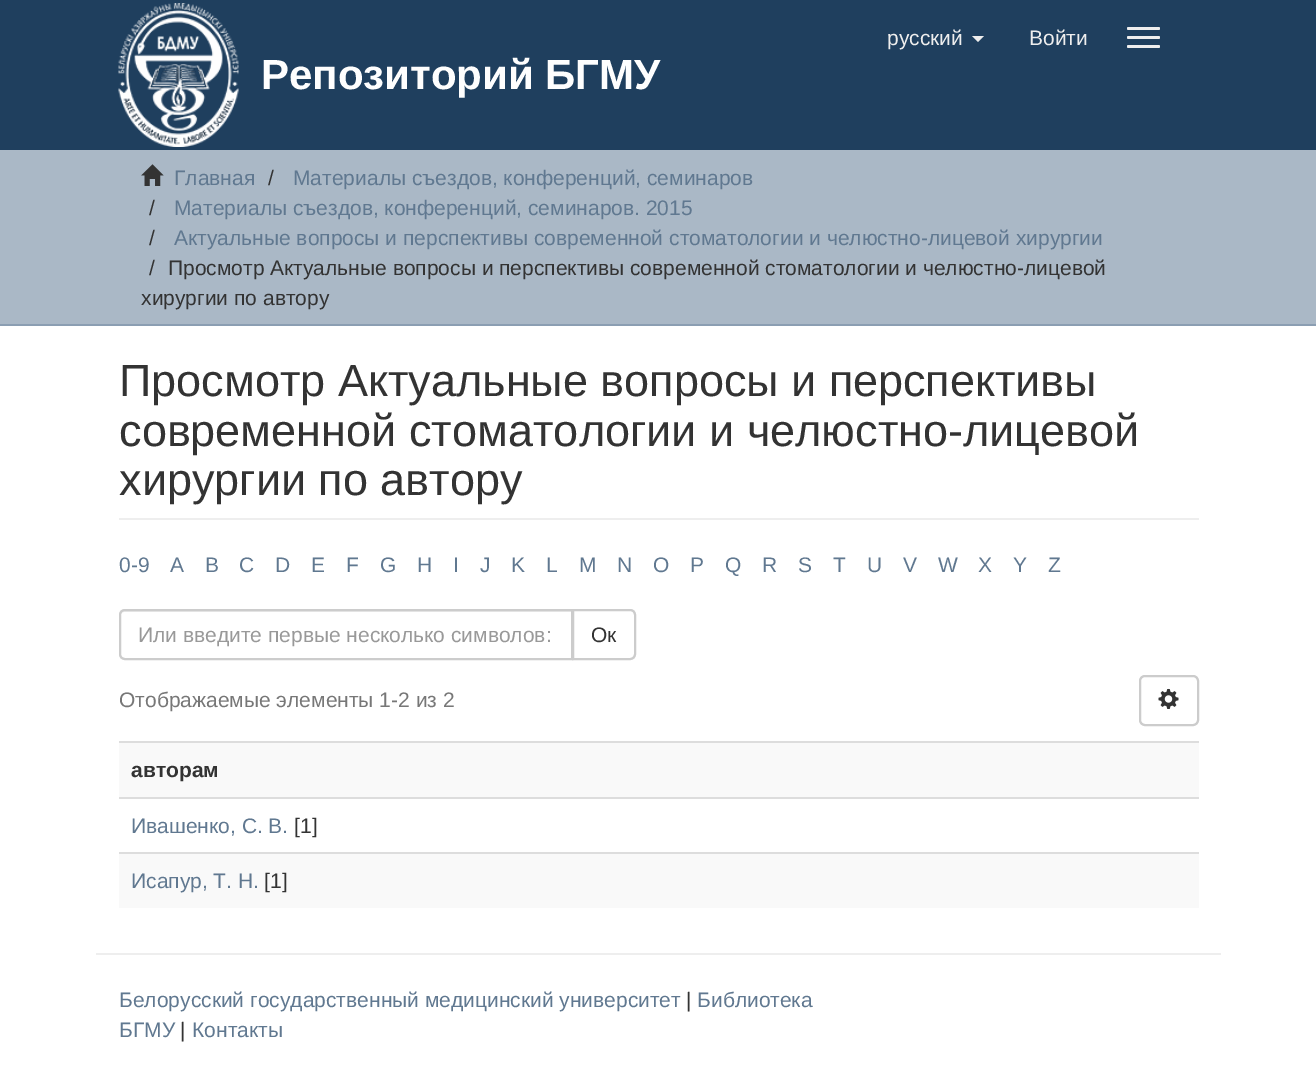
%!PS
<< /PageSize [1316 1075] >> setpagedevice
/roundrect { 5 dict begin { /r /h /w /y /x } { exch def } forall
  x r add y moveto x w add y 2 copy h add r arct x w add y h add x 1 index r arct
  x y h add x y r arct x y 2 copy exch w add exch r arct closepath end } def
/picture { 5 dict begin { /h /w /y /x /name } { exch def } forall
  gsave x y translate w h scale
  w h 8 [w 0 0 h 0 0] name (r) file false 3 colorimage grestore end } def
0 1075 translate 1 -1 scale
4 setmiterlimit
1 setgray
0 0 1316 1075 rectfill
0.122 0.247 0.369 setrgbcolor
0 0 1316 150 rectfill
/LiberationSans-Regular [21 0 0 -21 0 0] selectfont
0.933 setgray
887 45 moveto (русский) show
newpath 972 36 moveto 984 36 lineto 978 42 lineto closepath fill
1029 45 moveto (Войти) show
1127 27 33 3 1.5 roundrect fill
1127 36 33 3 1.5 roundrect fill
1127 45 33 3 1.5 roundrect fill
(img1.rgb) 118 3 121 144 picture
/LiberationSans-Bold [42 0 0 -42 0 0] selectfont
0.996 setgray
261 89 moveto (Репозиторий БГМУ) show
0.667 0.722 0.776 setrgbcolor
0 150 1316 174 rectfill
0.545 0.62 0.698 setrgbcolor
0 324 1316 2 rectfill
(img2.rgb) 141 164 23 22 picture
/LiberationSans-Regular [21 0 0 -21 0 0] selectfont
0.376 0.471 0.565 setrgbcolor
174 185 moveto (Главная) show
0.2 setgray
268 185 moveto (/) show
0.376 0.471 0.565 setrgbcolor
293 185 moveto (Материалы съездов, конференций, семинаров) show
0.2 setgray
149 215 moveto (/) show
0.376 0.471 0.565 setrgbcolor
174 215 moveto (Материалы съездов, конференций, семинаров. 2015) show
0.2 setgray
149 245 moveto (/) show
0.376 0.471 0.565 setrgbcolor
174 245 moveto (Актуальные вопросы и перспективы современной стоматологии и челюстно-лицевой хирургии) show
0.2 setgray
149 275 moveto (/) show
168 275 moveto (Просмотр Актуальные вопросы и перспективы современной стоматологии и челюстно-лицевой) show
141 305 moveto (хирургии по автору) show
0.933 setgray
119 518 1080 2 rectfill
/LiberationSans-Regular [45 0 0 -45 0 0] selectfont
0.2 setgray
119 396 moveto (Просмотр Актуальные вопросы и перспективы) show
119 446 moveto (современной стоматологии и челюстно-лицевой) show
119 495 moveto (хирургии по автору) show
/LiberationSans-Regular [21 0 0 -21 0 0] selectfont
0.376 0.471 0.565 setrgbcolor
119 572 moveto (0-9) show
170 572 moveto (A) show
205 572 moveto (B) show
239 572 moveto (C) show
275 572 moveto (D) show
311 572 moveto (E) show
346 572 moveto (F) show
380 572 moveto (G) show
417 572 moveto (H) show
453 572 moveto (I) show
480 572 moveto (J) show
511 572 moveto (K) show
546 572 moveto (L) show
579 572 moveto (M) show
617 572 moveto (N) show
653 572 moveto (O) show
690 572 moveto (P) show
725 572 moveto (Q) show
762 572 moveto (R) show
798 572 moveto (S) show
833 572 moveto (T) show
867 572 moveto (U) show
903 572 moveto (V) show
938 572 moveto (W) show
978 572 moveto (X) show
1013 572 moveto (Y) show
1048 572 moveto (Z) show
0.8 setgray
2 setlinewidth
newpath 573 610 moveto 630 610 lineto 633 610 635 612 635 615 curveto 635 654 lineto 635 657 633 659 630 659 curveto 573 659 lineto closepath stroke
1 setgray
newpath 125 609 moveto 573 609 lineto 573 660 lineto 125 660 lineto 121.5 660 119 657.5 119 654 curveto 119 615 lineto 119 611.5 121.5 609 125 609 curveto closepath fill
0.925 setgray
newpath 124 612 moveto 572 612 lineto 572 611 lineto 125 611 lineto 122 611 120 613 120 616 curveto 120 614 122 612 124 612 curveto closepath fill
0.8 setgray
newpath 125 610 moveto 572 610 lineto 572 659 lineto 125 659 lineto 122 659 120 657 120 654 curveto 120 615 lineto 120 612 122 610 125 610 curveto closepath stroke
0.6 setgray
138 642 moveto (Или введите первые несколько символов:) show
0.2 setgray
591 642 moveto (Ок) show
0.467 setgray
119 707 moveto (Отображаемые элементы 1-2 из 2) show
0.8 setgray
1140 676 58 49 5 roundrect stroke
(img3.rgb) 1158 688 21 21 picture
0.976 setgray
119 743 1080 54 rectfill
0.867 setgray
119 741 1080 2 rectfill
/LiberationSans-Bold [21 0 0 -21 0 0] selectfont
0.2 setgray
131 777 moveto (авторам) show
0.867 setgray
119 797 1080 2 rectfill
/LiberationSans-Regular [21 0 0 -21 0 0] selectfont
0.376 0.471 0.565 setrgbcolor
131 833 moveto (Ивашенко, С. В.) show
0.2 setgray
294 833 moveto ([1]) show
0.976 setgray
119 854 1080 54 rectfill
0.867 setgray
119 852 1080 2 rectfill
0.376 0.471 0.565 setrgbcolor
131 888 moveto (Исапур, Т. Н.) show
0.2 setgray
264 888 moveto ([1]) show
0.933 setgray
96 953 1125 2 rectfill
0.376 0.471 0.565 setrgbcolor
119 1007 moveto (Белорусский государственный медицинский университет) show
0.2 setgray
686 1007 moveto (|) show
0.376 0.471 0.565 setrgbcolor
697 1007 moveto (Библиотека) show
119 1037 moveto (БГМУ) show
0.2 setgray
180 1037 moveto (|) show
0.376 0.471 0.565 setrgbcolor
192 1037 moveto (Контакты) show
showpage
